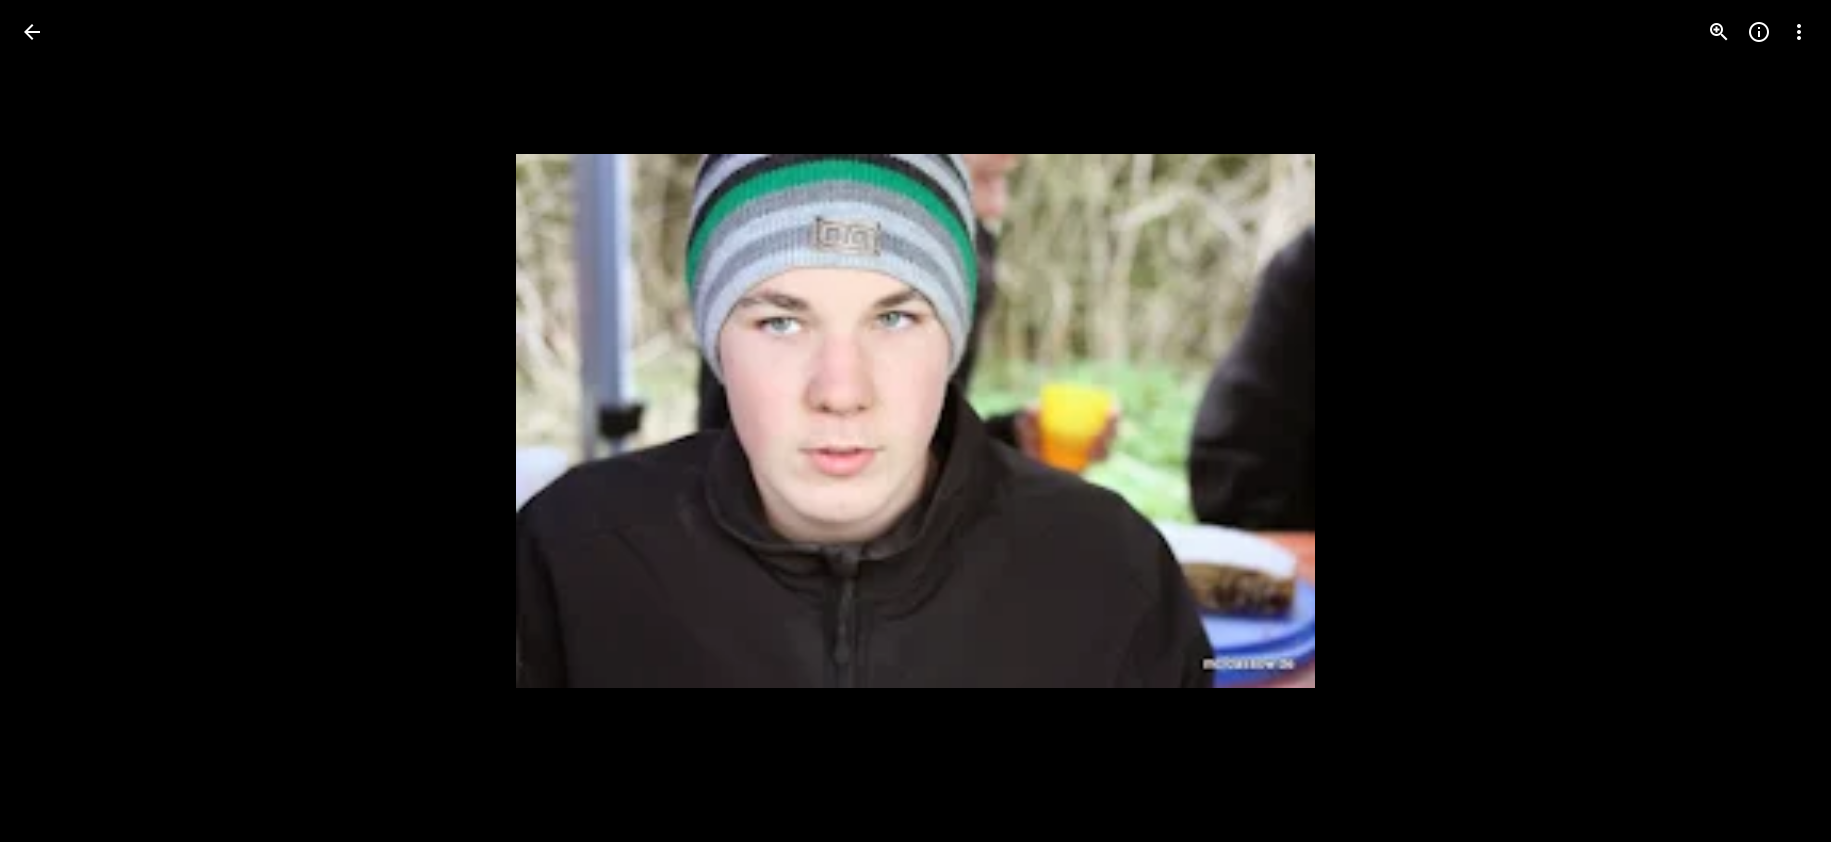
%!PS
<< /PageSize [1831 842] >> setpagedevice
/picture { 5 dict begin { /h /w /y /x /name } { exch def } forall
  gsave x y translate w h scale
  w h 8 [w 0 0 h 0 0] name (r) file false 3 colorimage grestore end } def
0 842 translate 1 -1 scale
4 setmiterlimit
0 setgray
0 0 1831 842 rectfill
(img1.rgb) 24 24 16 16 picture
(img2.rgb) 1710 23 18 18 picture
(img3.rgb) 1749 22 20 20 picture
(img4.rgb) 1797 24 4 16 picture
(img5.rgb) 516 154 799 534 picture
showpage
